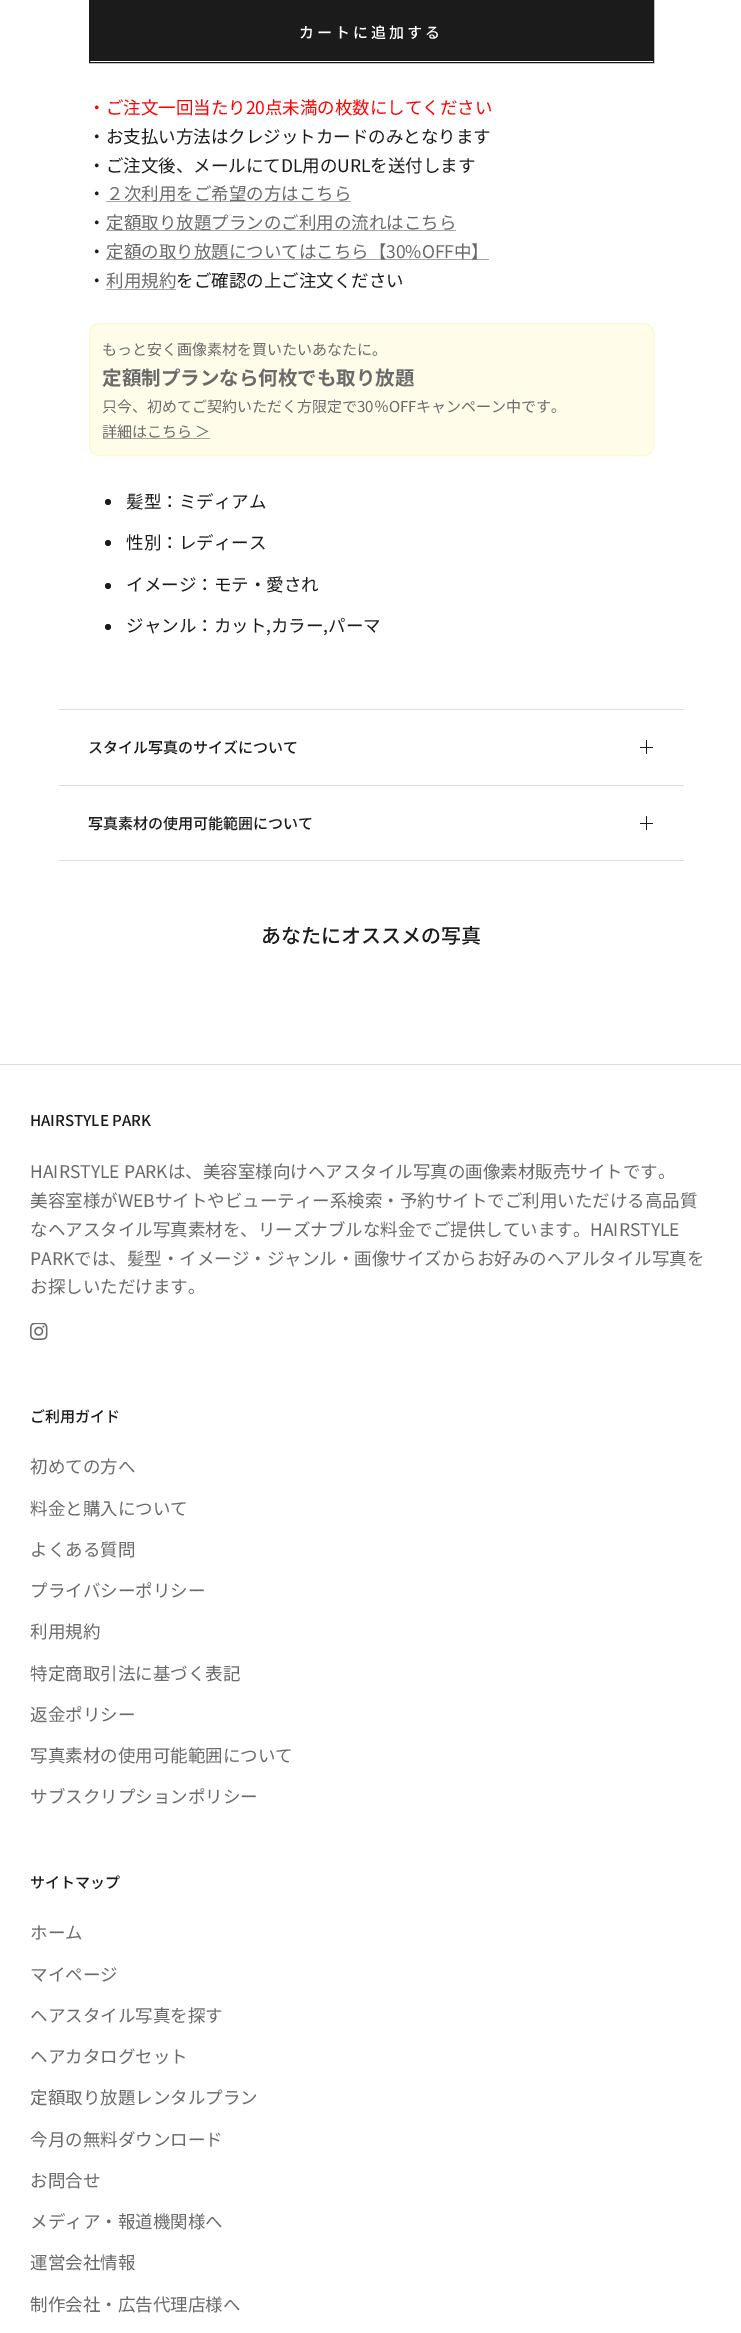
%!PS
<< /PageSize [741 2333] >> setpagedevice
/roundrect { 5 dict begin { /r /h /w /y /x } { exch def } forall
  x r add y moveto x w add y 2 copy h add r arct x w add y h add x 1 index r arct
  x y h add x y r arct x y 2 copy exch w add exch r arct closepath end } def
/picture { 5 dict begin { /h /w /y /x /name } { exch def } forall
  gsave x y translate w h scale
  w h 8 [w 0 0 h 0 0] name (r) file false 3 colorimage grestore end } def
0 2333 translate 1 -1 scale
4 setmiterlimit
1 setgray
0 0 741 2333 rectfill
0.11 0.106 0.106 setrgbcolor
89.5 -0.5 564 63 rectstroke
90 0 563 61 rectfill
/NotoSansJP-Medium [15 0 0 -15 0 0] selectfont
1 setgray
299 38 moveto 3 0 (カートに追加する) ashow
/NotoSansJP-Regular [17.5 0 0 -17.5 0 0] selectfont
1 0 0 setrgbcolor
88 114 moveto (・ご注文一回当たり20点未満の枚数にしてください) show
0.11 0.106 0.106 setrgbcolor
88 143 moveto (・お支払い方法はクレジットカードのみとなります) show
88 172 moveto (・ご注文後、メールにてDL用のURLを送付します) show
88 200 moveto (・) show
0.651 setgray
106 201 245 1 rectfill
0.416 setgray
106 200 moveto (２次利用をご希望の方はこちら) show
0.11 0.106 0.106 setrgbcolor
88 229 moveto (・) show
0.651 setgray
106 230 350 1 rectfill
0.416 setgray
106 229 moveto (定額取り放題プランのご利用の流れはこちら) show
0.11 0.106 0.106 setrgbcolor
88 258 moveto (・) show
0.651 setgray
106 259 383 1 rectfill
0.416 setgray
106 258 moveto (定額の取り放題についてはこちら【30%OFF中】) show
0.11 0.106 0.106 setrgbcolor
88 287 moveto (・) show
0.416 setgray
106 287 moveto (利用規約) show
0.651 setgray
106 289 70 1 rectfill
0.11 0.106 0.106 setrgbcolor
176 287 moveto (をご確認の上ご注文ください) show
1 0.992 0.914 setrgbcolor
89.5 323.5 564 132 9.5 roundrect gsave fill grestore
0.992 0.973 0.816 setrgbcolor
stroke
/NotoSansJP-Regular [15 0 0 -15 0 0] selectfont
0.416 setgray
102 355 moveto (もっと安く画像素材を買いたいあなたに。) show
/NotoSansJP-Bold [19.5 0 0 -19.5 0 0] selectfont
102 385 moveto (定額制プランなら何枚でも取り放題) show
/NotoSansJP-Regular [15 0 0 -15 0 0] selectfont
102 412 moveto (只今、初めてご契約いただく方限定で30％OFFキャンペーン中です。) show
0.651 0.647 0.616 setrgbcolor
103 438 107 1 rectfill
0.416 setgray
102 437 moveto (詳細はこちら ＞) show
0.11 0.106 0.106 setrgbcolor
newpath 108 502 3 0 360 arc closepath fill
/NotoSansJP-Regular [17.5 0 0 -17.5 0 0] selectfont
126 508 moveto (髪型：ミディアム) show
newpath 108 543 3 0 360 arc closepath fill
126 549 moveto (性別：レディース) show
newpath 108 586 3 0 360 arc closepath fill
126 591 moveto (イメージ：モテ・愛され) show
newpath 108 627 3 0 360 arc closepath fill
126 632 moveto (ジャンル：カット,カラー,パーマ) show
0.867 setgray
59 709 625 1 rectfill
59 785 625 1 rectfill
/NotoSansJP-Medium [15 0 0 -15 0 0] selectfont
0.11 0.106 0.106 setrgbcolor
88 753 moveto (スタイル写真のサイズについて) show
646 740 1 14 rectfill
640 747 13 1 rectfill
0.867 setgray
59 860 625 1 rectfill
0.11 0.106 0.106 setrgbcolor
88 829 moveto (写真素材の使用可能範囲について) show
646 816 1 14 rectfill
640 823 13 1 rectfill
/NotoSansJP-Medium [20 0 0 -20 0 0] selectfont
261 943 moveto (あなたにオススメの写真) show
0.867 setgray
0 1064 741 1 rectfill
/NotoSansJP-Medium [15 0 0 -15 0 0] selectfont
0.11 0.106 0.106 setrgbcolor
30 1126 moveto (HAIRSTYLE PARK) show
/NotoSansJP-Regular [17.5 0 0 -17.5 0 0] selectfont
0.416 setgray
30 1178 moveto (HAIRSTYLE PARKは、美容室様向けヘアスタイル写真の画像素材販売サイトです。) show
30 1207 moveto (美容室様がWEBサイトやビューティー系検索・予約サイトでご利用いただける高品質) show
30 1236 moveto (なヘアスタイル写真素材を、リーズナブルな料金でご提供しています。HAIRSTYLE) show
30 1265 moveto (PARKでは、髪型・イメージ・ジャンル・画像サイズからお好みのへアルタイル写真を) show
30 1293 moveto (お探しいただけます。) show
(img1.rgb) 30 1323 18 17 picture
/NotoSansJP-Medium [15 0 0 -15 0 0] selectfont
0.11 0.106 0.106 setrgbcolor
30 1422 moveto (ご利用ガイド) show
/NotoSansJP-Regular [17.5 0 0 -17.5 0 0] selectfont
0.416 setgray
30 1473 moveto (初めての方へ) show
30 1515 moveto (料金と購入について) show
30 1556 moveto (よくある質問) show
30 1597 moveto (プライバシーポリシー) show
30 1638 moveto (利用規約) show
30 1680 moveto (特定商取引法に基づく表記) show
30 1721 moveto (返金ポリシー) show
30 1762 moveto (写真素材の使用可能範囲について) show
30 1803 moveto (サブスクリプションポリシー) show
/NotoSansJP-Medium [15 0 0 -15 0 0] selectfont
0.11 0.106 0.106 setrgbcolor
30 1888 moveto (サイトマップ) show
/NotoSansJP-Regular [17.5 0 0 -17.5 0 0] selectfont
0.416 setgray
30 1939 moveto (ホーム) show
30 1981 moveto (マイページ) show
30 2022 moveto (ヘアスタイル写真を探す) show
30 2063 moveto (ヘアカタログセット) show
30 2104 moveto (定額取り放題レンタルプラン) show
30 2146 moveto (今月の無料ダウンロード) show
30 2187 moveto (お問合せ) show
30 2228 moveto (メディア・報道機関様へ) show
30 2269 moveto (運営会社情報) show
30 2311 moveto (制作会社・広告代理店様へ) show
showpage
